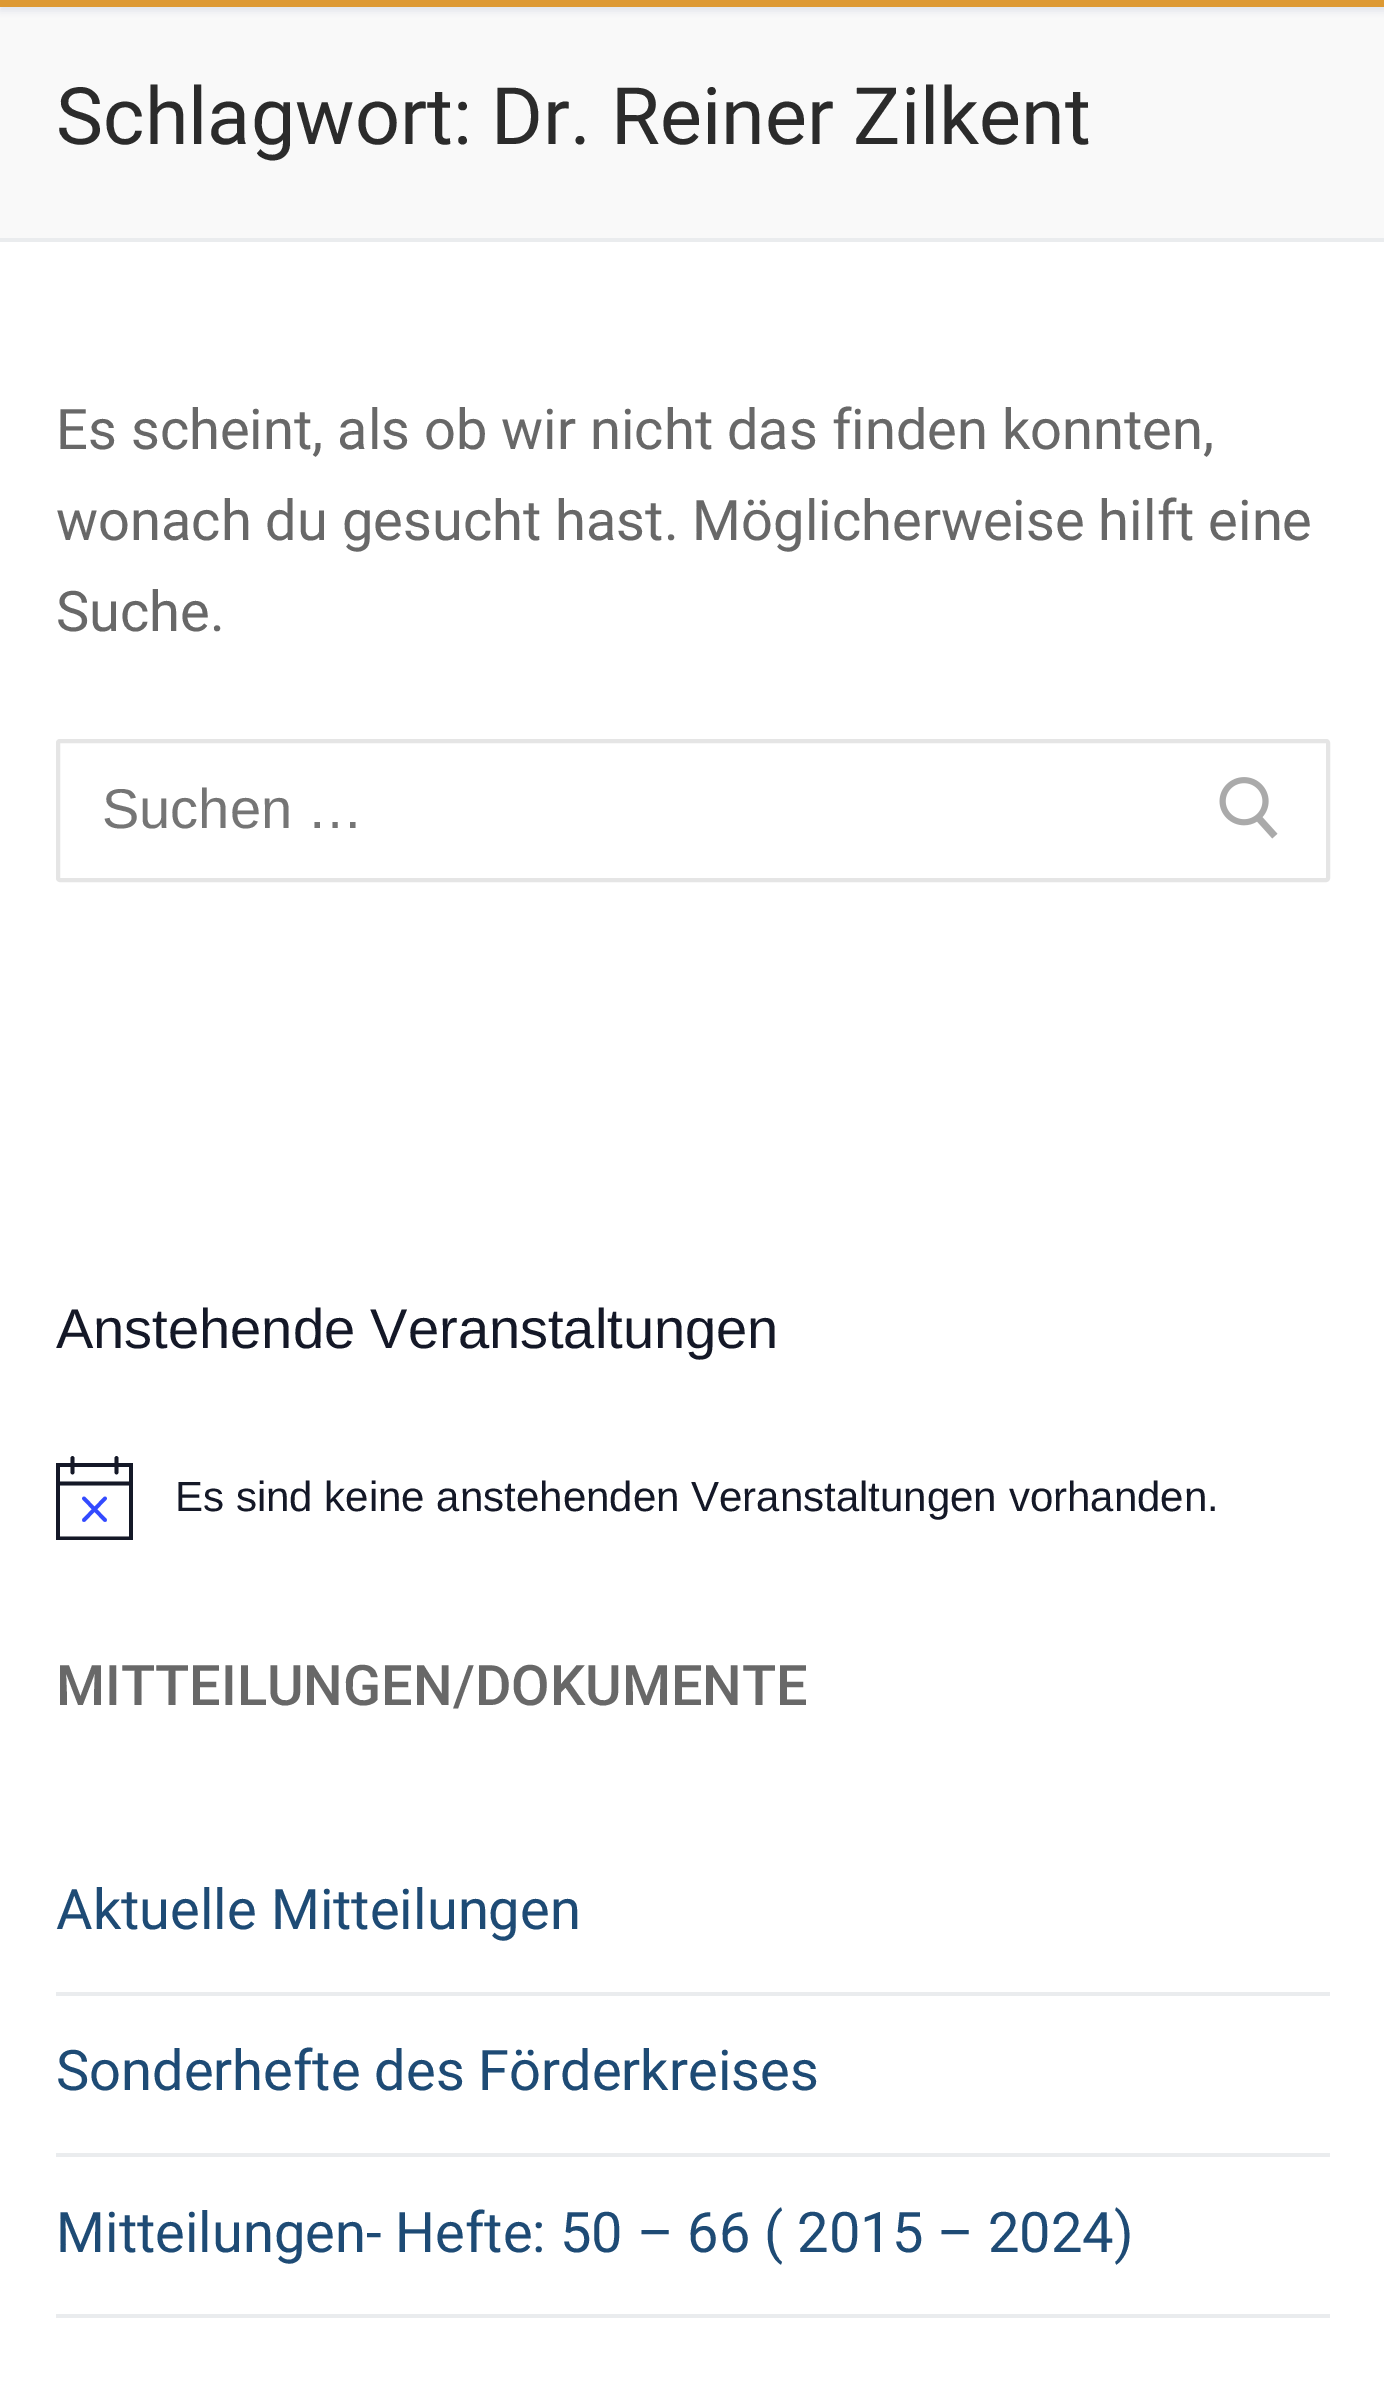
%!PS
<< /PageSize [1384 2392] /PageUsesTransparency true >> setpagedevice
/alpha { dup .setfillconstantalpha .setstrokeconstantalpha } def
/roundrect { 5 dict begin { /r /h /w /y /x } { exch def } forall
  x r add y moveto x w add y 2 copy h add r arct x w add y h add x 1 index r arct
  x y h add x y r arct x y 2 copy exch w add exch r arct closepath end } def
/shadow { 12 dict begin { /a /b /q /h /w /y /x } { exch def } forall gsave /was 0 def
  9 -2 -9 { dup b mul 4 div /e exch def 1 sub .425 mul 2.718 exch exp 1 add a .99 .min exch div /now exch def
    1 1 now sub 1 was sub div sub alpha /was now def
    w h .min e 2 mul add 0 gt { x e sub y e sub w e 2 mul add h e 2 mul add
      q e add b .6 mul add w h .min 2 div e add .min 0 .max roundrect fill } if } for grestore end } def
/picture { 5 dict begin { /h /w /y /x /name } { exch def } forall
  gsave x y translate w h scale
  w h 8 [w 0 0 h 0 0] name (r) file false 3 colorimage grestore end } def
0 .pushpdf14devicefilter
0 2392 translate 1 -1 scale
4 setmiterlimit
0.867 0.6 0.2 setrgbcolor
0 0 1384 2392 rectfill
0.976 setgray
0 7 1384 231 rectfill
gsave
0 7 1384 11 rectclip
0.882 0.898 0.918 setrgbcolor
0 -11 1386 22 0 3.5 1 shadow
grestore
0.918 0.925 0.933 setrgbcolor
0 238 1384 4 rectfill
/Roboto-Regular [79.25 0 0 -79.25 0 0] selectfont
0.169 setgray
56 144 moveto (Schlagwort: Dr. Reiner Zilkent) show
1 setgray
0 242 1384 2150 rectfill
/Roboto-Regular [56 0 0 -56 0 0] selectfont
0.408 setgray
56 449 moveto (Es scheint, als ob wir nicht das finden konnten,) show
56 540 moveto (wonach du gesucht hast. Möglicherweise hilft eine) show
56 631 moveto (Suche.) show
0.898 setgray
4 setlinewidth
58 741 1270 139 2 roundrect stroke
/LiberationSans-Regular [56 0 0 -56 0 0] selectfont
0.459 setgray
102 828 moveto (Suchen …) show
(img1.rgb) 1219 777 59 62 picture
0.078 0.094 0.153 setrgbcolor
56 1348 moveto (Anstehende Veranstaltungen) show
gsave
56 1456 77 84 rectclip
3.7 setlinewidth
newpath 58 1465 moveto 131 1465 lineto 131 1538.5 lineto 58 1538.5 lineto closepath stroke
grestore
0.2 0.29 1 setrgbcolor
3.7 setlinewidth
1 setlinecap
newpath 84 1498.5 moveto 105 1520 lineto 105 1498.5 moveto 84 1520 lineto stroke
0.078 0.094 0.153 setrgbcolor
newpath 72.5 1458 moveto 72.5 1472.5 lineto 116.5 1458 moveto 116.5 1472.5 lineto stroke
2 setlinecap
newpath 58 1483.5 moveto 131 1483.5 lineto stroke
/LiberationSans-Regular [42 0 0 -42 0 0] selectfont
175 1511 moveto (Es sind keine anstehenden Veranstaltungen vorhanden.) show
/Roboto-Medium [56 0 0 -56 0 0] selectfont
0.408 setgray
56 1705 moveto (MITTEILUNGEN/DOKUMENTE) show
0.918 0.925 0.933 setrgbcolor
56 1992 1274 4 rectfill
/Roboto-Regular [56 0 0 -56 0 0] selectfont
0.118 0.294 0.459 setrgbcolor
56 1929 moveto (Aktuelle Mitteilungen) show
0.918 0.925 0.933 setrgbcolor
56 2153 1274 4 rectfill
0.118 0.294 0.459 setrgbcolor
56 2090 moveto (Sonderhefte des Förderkreises) show
0.918 0.925 0.933 setrgbcolor
56 2314 1274 4 rectfill
0.118 0.294 0.459 setrgbcolor
56 2252 moveto (Mitteilungen- Hefte: 50 – 66 \( 2015 – 2024\)) show
.poppdf14devicefilter showpage
